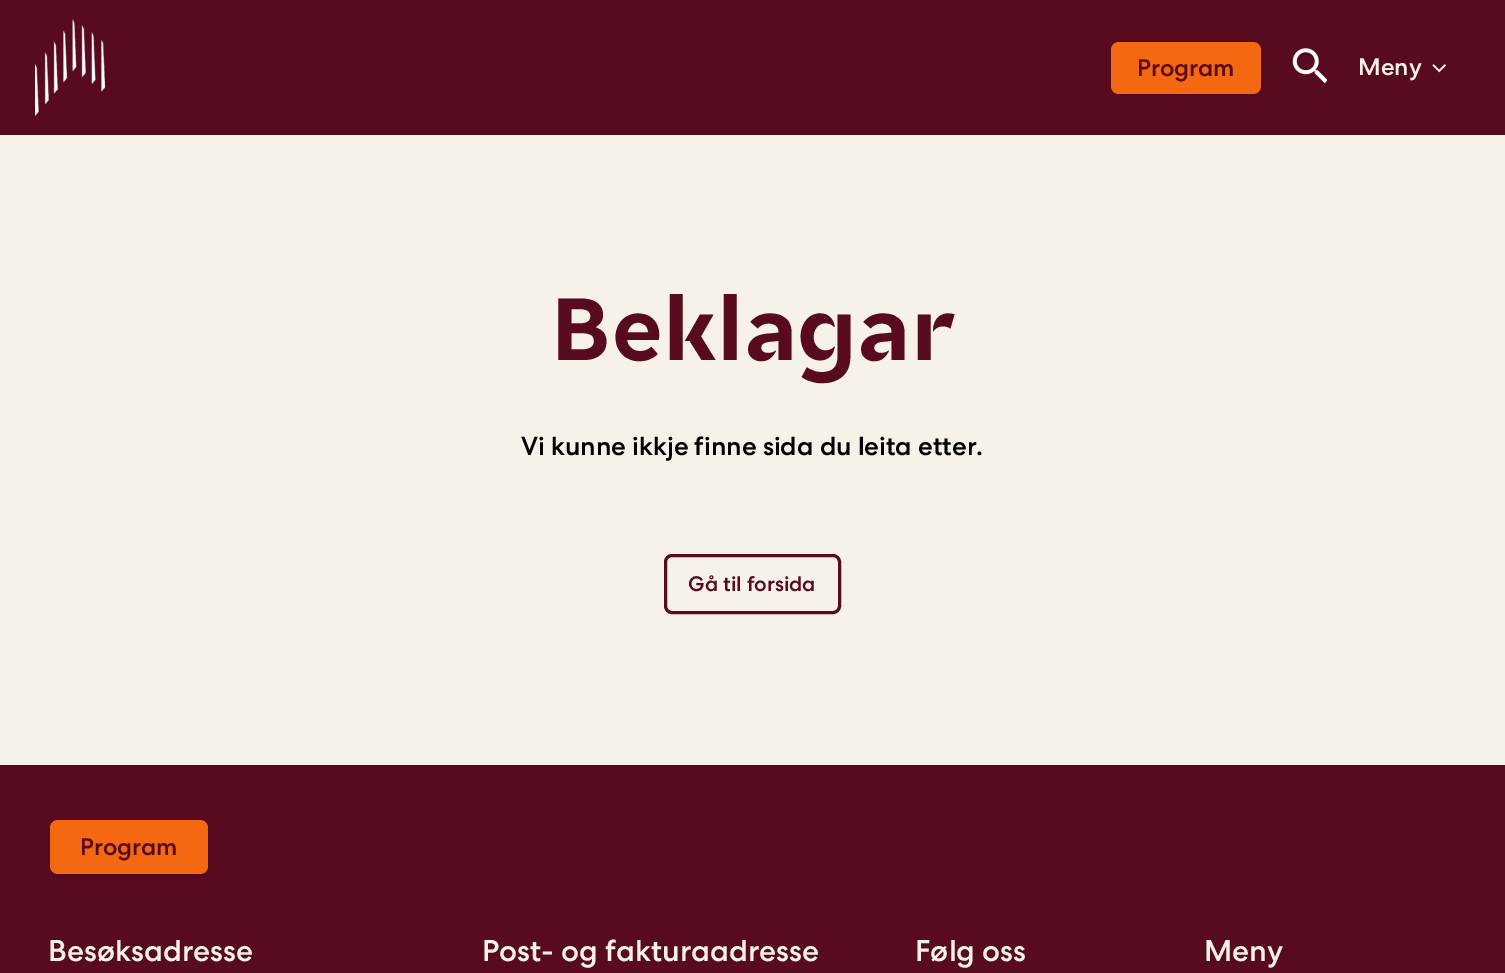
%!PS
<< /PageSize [1505 973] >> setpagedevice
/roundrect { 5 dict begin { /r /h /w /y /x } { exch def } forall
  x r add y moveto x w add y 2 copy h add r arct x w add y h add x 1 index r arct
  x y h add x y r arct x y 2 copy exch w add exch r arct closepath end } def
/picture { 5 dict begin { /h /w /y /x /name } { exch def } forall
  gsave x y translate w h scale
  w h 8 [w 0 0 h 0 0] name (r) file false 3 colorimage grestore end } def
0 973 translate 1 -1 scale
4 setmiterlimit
0.969 0.949 0.914 setrgbcolor
0 0 1505 973 rectfill
0.345 0.043 0.122 setrgbcolor
0 0 1505 135 rectfill
(img1.rgb) 35 19 70 97 picture
0.953 0.408 0.063 setrgbcolor
1111 42 150 52 8 roundrect fill
/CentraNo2-Medium [24 0 0 -24 0 0] selectfont
0.345 0.043 0.122 setrgbcolor
1137 76 moveto (Program) show
(img2.rgb) 1292 48 35 36 picture
0.969 0.949 0.914 setrgbcolor
1358 75 moveto (Meny) show
(img3.rgb) 1432 64 14 9 picture
/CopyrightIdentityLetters-Bold [88 0 0 -88 0 0] selectfont
0.345 0.043 0.122 setrgbcolor
550 360 moveto (Beklagar) show
/CentraNo2-Medium [26 0 0 -26 0 0] selectfont
0 setgray
521 455 moveto (Vi kunne ikkje finne sida du leita etter.) show
0.345 0.043 0.122 setrgbcolor
3 setlinewidth
665.5 555.5 174 57 6.5 roundrect stroke
/CentraNo2-Medium [21 0 0 -21 0 0] selectfont
688 591 moveto (Gå til forsida) show
0 765 1505 208 rectfill
0.953 0.408 0.063 setrgbcolor
50 820 158 54 8 roundrect fill
/CentraNo2-Medium [24 0 0 -24 0 0] selectfont
0.345 0.043 0.122 setrgbcolor
80 855 moveto (Program) show
/CentraNo2-Medium [30 0 0 -30 0 0] selectfont
0.969 0.949 0.914 setrgbcolor
48 961 moveto (Besøksadresse) show
482 961 moveto (Post- og fakturaadresse) show
915 961 moveto (Følg oss) show
1204 961 moveto (Meny) show
showpage
